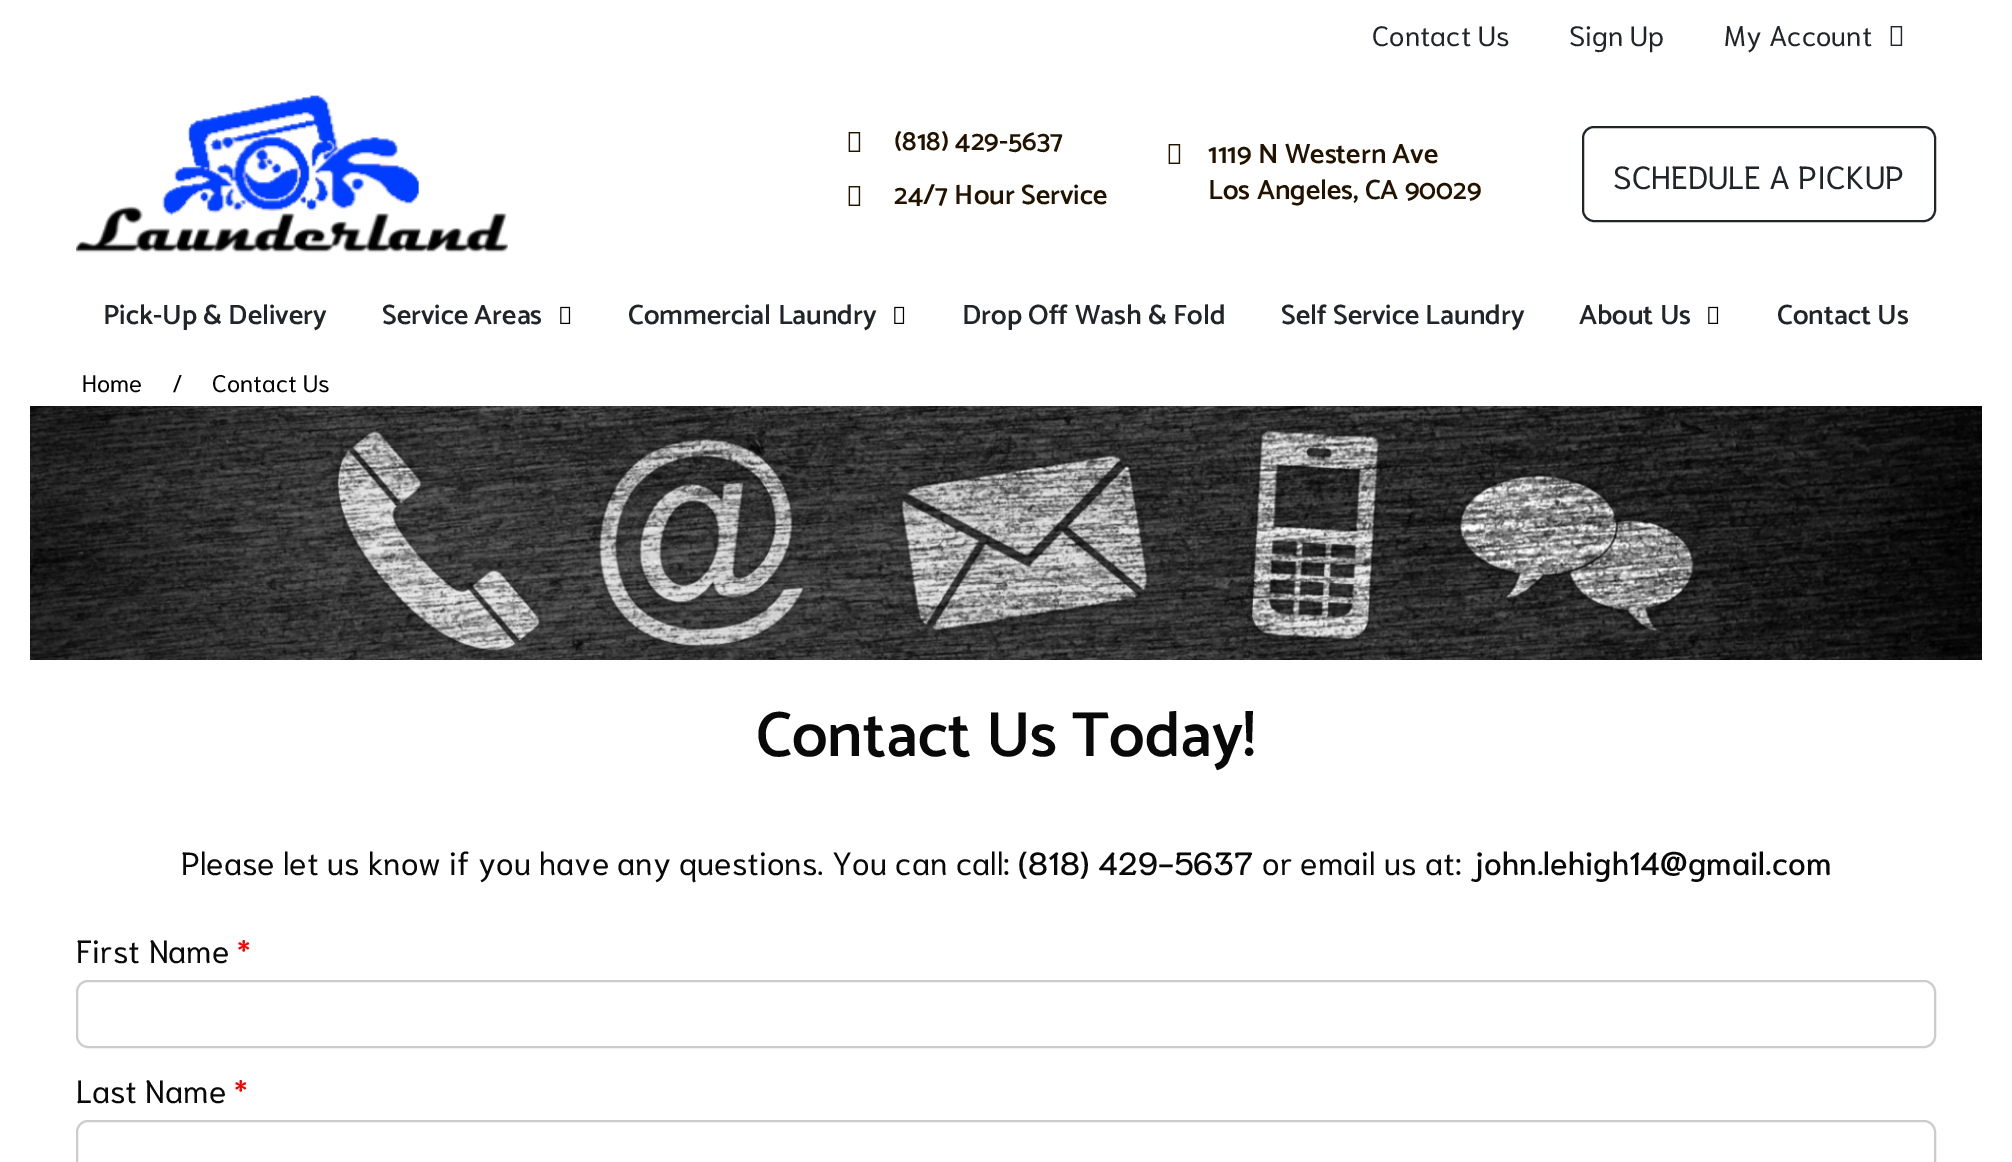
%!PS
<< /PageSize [2012 1162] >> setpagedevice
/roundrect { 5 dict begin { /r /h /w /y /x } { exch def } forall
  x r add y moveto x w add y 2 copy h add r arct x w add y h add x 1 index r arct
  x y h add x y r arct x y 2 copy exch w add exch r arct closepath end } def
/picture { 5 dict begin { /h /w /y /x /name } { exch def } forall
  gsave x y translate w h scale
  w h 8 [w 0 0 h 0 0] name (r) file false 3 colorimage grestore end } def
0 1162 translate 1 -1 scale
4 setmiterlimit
1 setgray
0 0 2012 1162 rectfill
/Niramit-Regular [28 0 0 -28 0 0] selectfont
0.129 0.145 0.161 setrgbcolor
1372 46 moveto (Contact Us) show
1569 46 moveto (Sign Up) show
1724 46 moveto (My Account) show
(img1.rgb) 1890 26 13 20 picture
(img2.rgb) 76 95 432 158 picture
(img3.rgb) 848 132 13 20 picture
/Catamaran-SemiBold [28 0 0 -28 0 0] selectfont
0.133 0.075 0 setrgbcolor
894 150 moveto (\(818\) 429-5637) show
(img3.rgb) 848 186 13 20 picture
894 204 moveto (24/7 Hour Service) show
(img3.rgb) 1168 144 13 20 picture
1208 163 moveto (1119 N Western Ave) show
1208 199 moveto (Los Angeles, CA 90029) show
0.129 0.145 0.161 setrgbcolor
2 setlinewidth
1583 127 352 94 11 roundrect stroke
/Niramit-Regular [32 0 0 -32 0 0] selectfont
1613 189 moveto (SCHEDULE A PICKUP) show
/Catamaran-SemiBold [28 0 0 -28 0 0] selectfont
103 324 moveto (Pick-Up & Delivery) show
382 324 moveto (Service Areas) show
(img4.rgb) 560 306 11 18 picture
628 324 moveto (Commercial Laundry) show
(img4.rgb) 894 306 11 18 picture
962 324 moveto (Drop Off Wash & Fold) show
1281 324 moveto (Self Service Laundry) show
1579 324 moveto (About Us) show
(img4.rgb) 1708 306 11 18 picture
1777 324 moveto (Contact Us) show
/Niramit-Regular [24 0 0 -24 0 0] selectfont
0 setgray
82 392 moveto (Home) show
172 392 moveto (/) show
212 392 moveto (Contact Us) show
(img5.rgb) 30 406 1952 254 picture
/Catamaran-SemiBold [64 0 0 -64 0 0] selectfont
0.035 setgray
756 756 moveto (Contact Us Today!) show
/Niramit-Regular [32 0 0 -32 0 0] selectfont
181 875 moveto (Please let us know if you have any questions. You can call:) show
/Niramit-Medium [32 0 0 -32 0 0] selectfont
1018 875 moveto (\(818\) 429-5637) show
/Niramit-Regular [32 0 0 -32 0 0] selectfont
1262 875 moveto (or email us at:) show
/Niramit-Medium [32 0 0 -32 0 0] selectfont
1470 875 moveto (john.lehigh14@gmail.com) show
/Niramit-Regular [32 0 0 -32 0 0] selectfont
76 963 moveto (First Name) show
1 0 0 setrgbcolor
237 963 moveto (*) show
0.8 setgray
77 981 1858 66 11 roundrect stroke
0.035 setgray
76 1103 moveto (Last Name) show
1 0 0 setrgbcolor
234 1103 moveto (*) show
0.8 setgray
77 1121 1858 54 11 roundrect stroke
showpage
